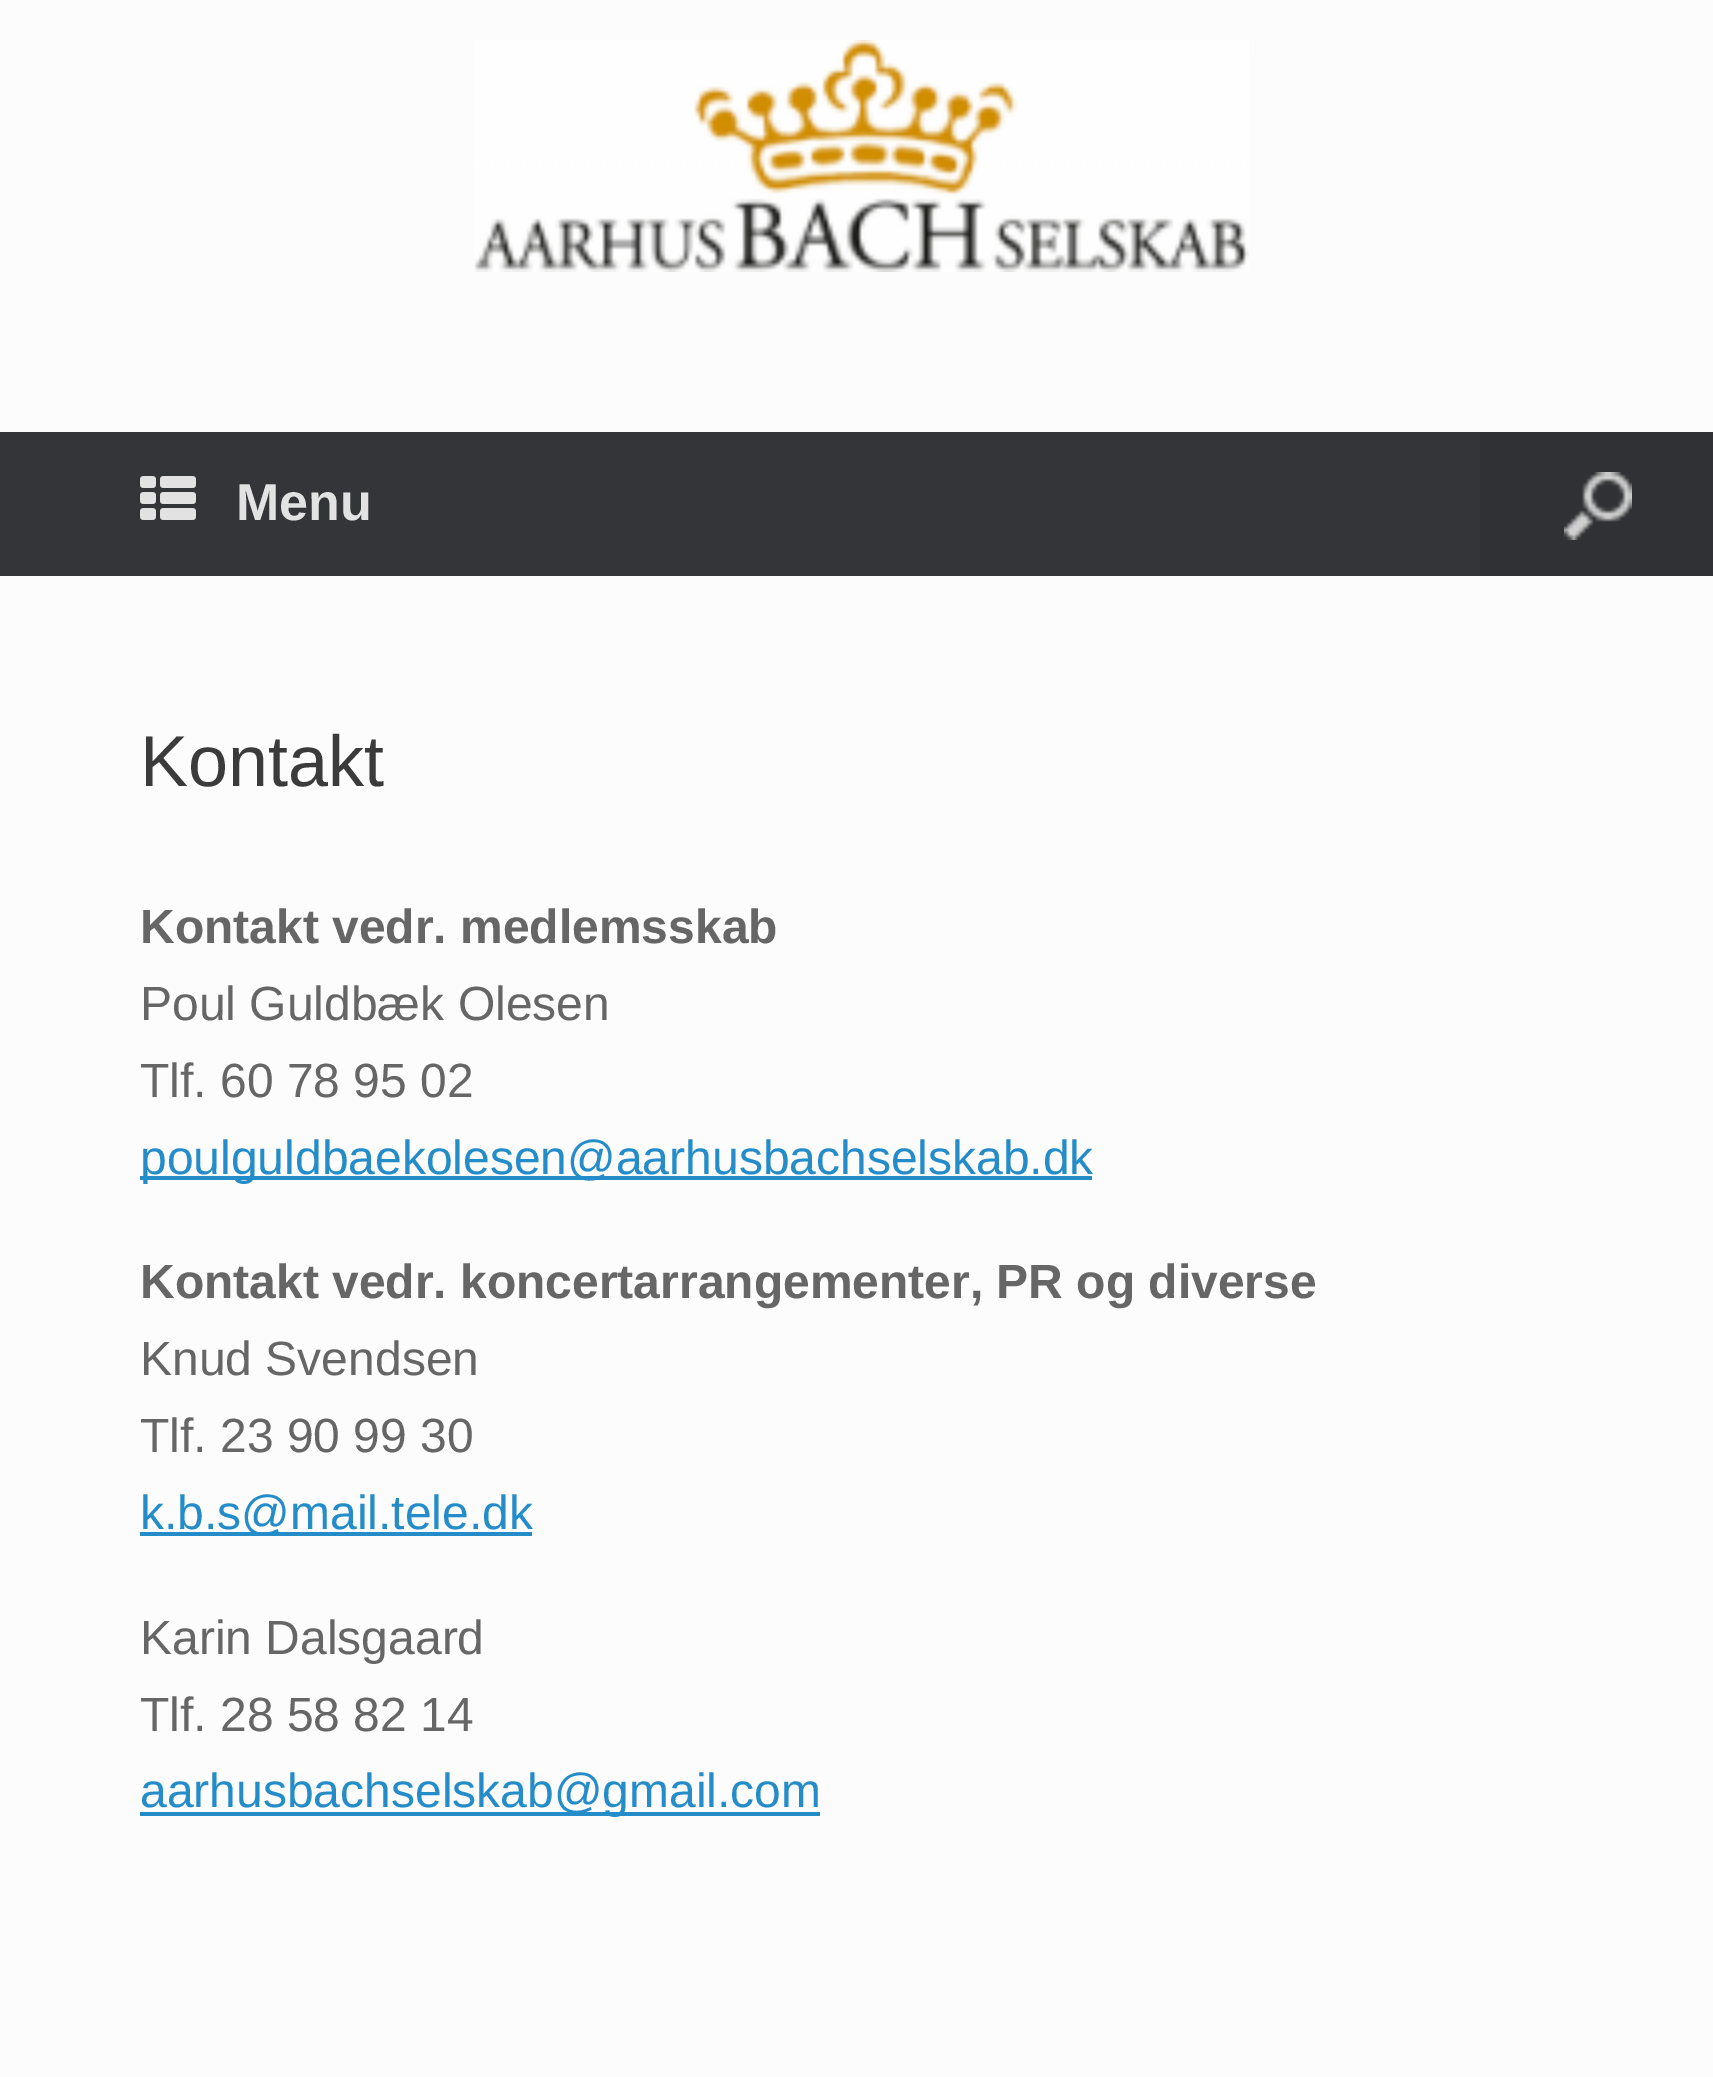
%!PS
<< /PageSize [1713 2077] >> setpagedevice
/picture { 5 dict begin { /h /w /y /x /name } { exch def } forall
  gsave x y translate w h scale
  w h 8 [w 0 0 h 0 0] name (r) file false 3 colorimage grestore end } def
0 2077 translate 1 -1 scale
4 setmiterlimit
0.988 setgray
0 0 1713 2077 rectfill
(img1.rgb) 474 40 775 232 picture
0.204 0.208 0.22 setrgbcolor
0 432 1480 144 rectfill
(img2.rgb) 140 476 56 44 picture
/LiberationSans-Bold [52 0 0 -52 0 0] selectfont
0.886 setgray
236 520 moveto (Menu) show
0.188 0.192 0.204 setrgbcolor
1480 432 233 144 rectfill
(img3.rgb) 1564 472 68 68 picture
/LiberationSans-Regular [72 0 0 -72 0 0] selectfont
0.231 setgray
140 786 moveto (Kontakt) show
/LiberationSans-Bold [48 0 0 -48 0 0] selectfont
0.4 setgray
140 943 moveto (Kontakt vedr. medlemsskab) show
/LiberationSans-Regular [48 0 0 -48 0 0] selectfont
140 1020 moveto (Poul Guldbæk Olesen) show
140 1097 moveto (Tlf. 60 78 95 02) show
0.141 0.549 0.784 setrgbcolor
140 1176 952 4 rectfill
140 1174 moveto (poulguldbaekolesen@aarhusbachselskab.dk) show
/LiberationSans-Bold [48 0 0 -48 0 0] selectfont
0.4 setgray
140 1298 moveto (Kontakt vedr. koncertarrangementer, PR og diverse) show
/LiberationSans-Regular [48 0 0 -48 0 0] selectfont
140 1375 moveto (Knud Svendsen) show
140 1452 moveto (Tlf. 23 90 99 30) show
0.141 0.549 0.784 setrgbcolor
140 1532 392 4 rectfill
140 1529 moveto (k.b.s@mail.tele.dk) show
0.4 setgray
140 1654 moveto (Karin Dalsgaard) show
140 1731 moveto (Tlf. 28 58 82 14) show
0.141 0.549 0.784 setrgbcolor
140 1812 680 4 rectfill
140 1807 moveto (aarhusbachselskab@gmail.com) show
showpage
